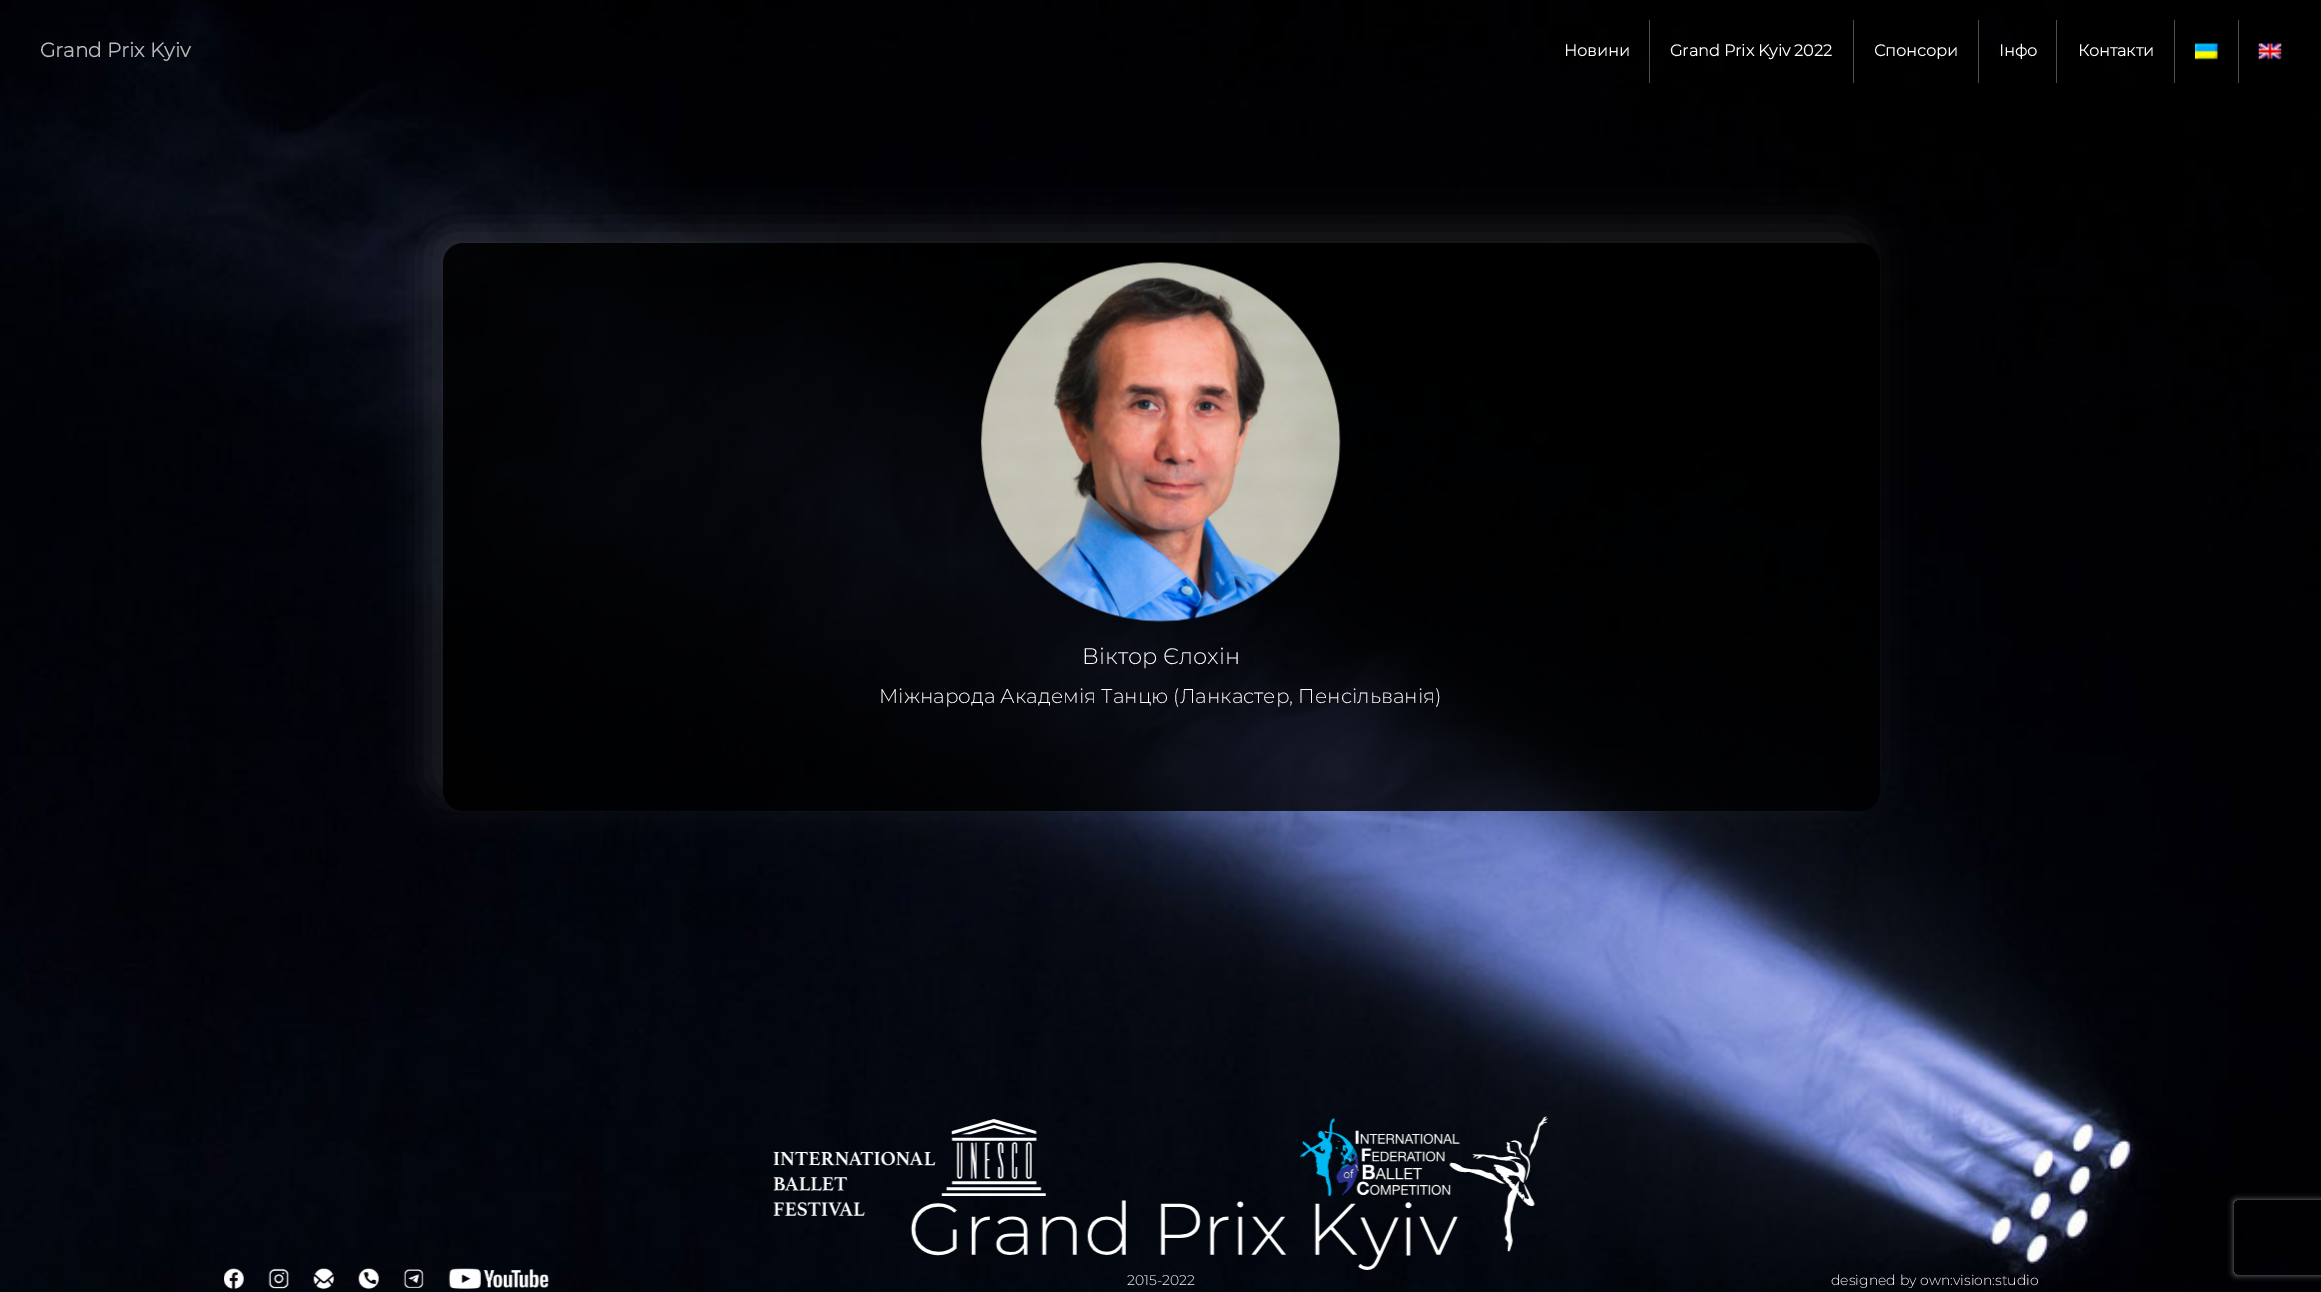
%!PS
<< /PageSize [2321 1292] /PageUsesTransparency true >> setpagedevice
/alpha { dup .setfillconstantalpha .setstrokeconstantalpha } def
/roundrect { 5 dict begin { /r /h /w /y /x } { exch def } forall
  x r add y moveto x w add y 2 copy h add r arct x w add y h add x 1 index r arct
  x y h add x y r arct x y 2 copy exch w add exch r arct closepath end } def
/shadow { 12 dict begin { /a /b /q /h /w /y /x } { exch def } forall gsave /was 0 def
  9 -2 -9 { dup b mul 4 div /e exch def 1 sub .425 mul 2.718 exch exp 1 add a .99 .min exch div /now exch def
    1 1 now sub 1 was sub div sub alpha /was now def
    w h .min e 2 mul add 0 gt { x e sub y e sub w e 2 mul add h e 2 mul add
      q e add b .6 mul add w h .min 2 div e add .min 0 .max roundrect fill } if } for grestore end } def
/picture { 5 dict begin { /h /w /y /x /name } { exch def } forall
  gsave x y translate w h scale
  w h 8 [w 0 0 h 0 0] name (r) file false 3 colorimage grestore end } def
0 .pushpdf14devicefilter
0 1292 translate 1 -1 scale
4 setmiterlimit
1 setgray
0 0 2321 1292 rectfill
(img1.rgb) 0 0 2321 1292 picture
/Montserrat-Bold [20 0 0 -20 0 0] selectfont
0.725 setgray
40 57 moveto (Grand Prix Kyiv) show
0.306 setgray
1649 20 1 63 rectfill
/Montserrat-Bold [16 0 0 -16 0 0] selectfont
1 setgray
1564 56 moveto (Новини) show
0.306 setgray
1853 20 1 63 rectfill
1 setgray
1670 56 moveto (Grand Prix Kyiv 2022) show
0.306 setgray
1978 20 1 63 rectfill
1 setgray
1874 56 moveto (Спонсори) show
0.306 setgray
2056 20 1 63 rectfill
1 setgray
1999 56 moveto (Інфо) show
0.306 setgray
2174 20 1 63 rectfill
1 setgray
2078 56 moveto (Контакти) show
0.306 setgray
2238 20 1 63 rectfill
(img2.rgb) 2195 43 23 17 picture
(img3.rgb) 2258 43 24 17 picture
gsave
newpath 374 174 moveto 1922 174 lineto 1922 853 lineto 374 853 lineto closepath 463 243 moveto 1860 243 lineto 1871 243 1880 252 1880 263 curveto 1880 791 lineto 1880 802 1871 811 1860 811 curveto 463 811 lineto 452 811 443 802 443 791 curveto 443 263 lineto 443 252 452 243 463 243 curveto closepath eoclip newpath
1 setgray
428 228 1440 571 21 17.5 0.1 shadow
grestore
0.8 alpha
0 setgray
443 243 1437 568 20 roundrect fill
1 alpha
(img4.rgb) 981 262 360 360 picture
/Montserrat-Thin [22.5 0 0 -22.5 0 0] selectfont
1 setgray
1082 664 moveto (Віктор Єлохін) show
/Montserrat-Thin [20 0 0 -20 0 0] selectfont
879 703 moveto (Міжнарода Академія Танцю \(Ланкастер, Пенсільванія\)) show
(img5.rgb) 224 1268 20 21 picture
(img6.rgb) 268 1268 21 21 picture
(img7.rgb) 313 1268 21 21 picture
(img8.rgb) 358 1268 21 21 picture
(img9.rgb) 403 1269 21 19 picture
(img10.rgb) 448 1268 101 21 picture
(img11.rgb) 773 1116 775 154 picture
/Montserrat-Thin [14 0 0 -14 0 0] selectfont
1127 1285 moveto (2015-2022) show
1831 1285 moveto (designed by own:vision:studio) show
gsave
newpath 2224 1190 moveto 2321 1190 lineto 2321 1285 lineto 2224 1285 lineto closepath 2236.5 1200 moveto 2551.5 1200 lineto 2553 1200 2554 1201 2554 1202.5 curveto 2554 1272.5 lineto 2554 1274 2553 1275 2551.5 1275 curveto 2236.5 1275 lineto 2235 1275 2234 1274 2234 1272.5 curveto 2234 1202.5 lineto 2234 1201 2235 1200 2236.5 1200 curveto closepath eoclip newpath
0.502 setgray
2234 1200 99 75 2.5 3 1 shadow
grestore
.poppdf14devicefilter showpage
